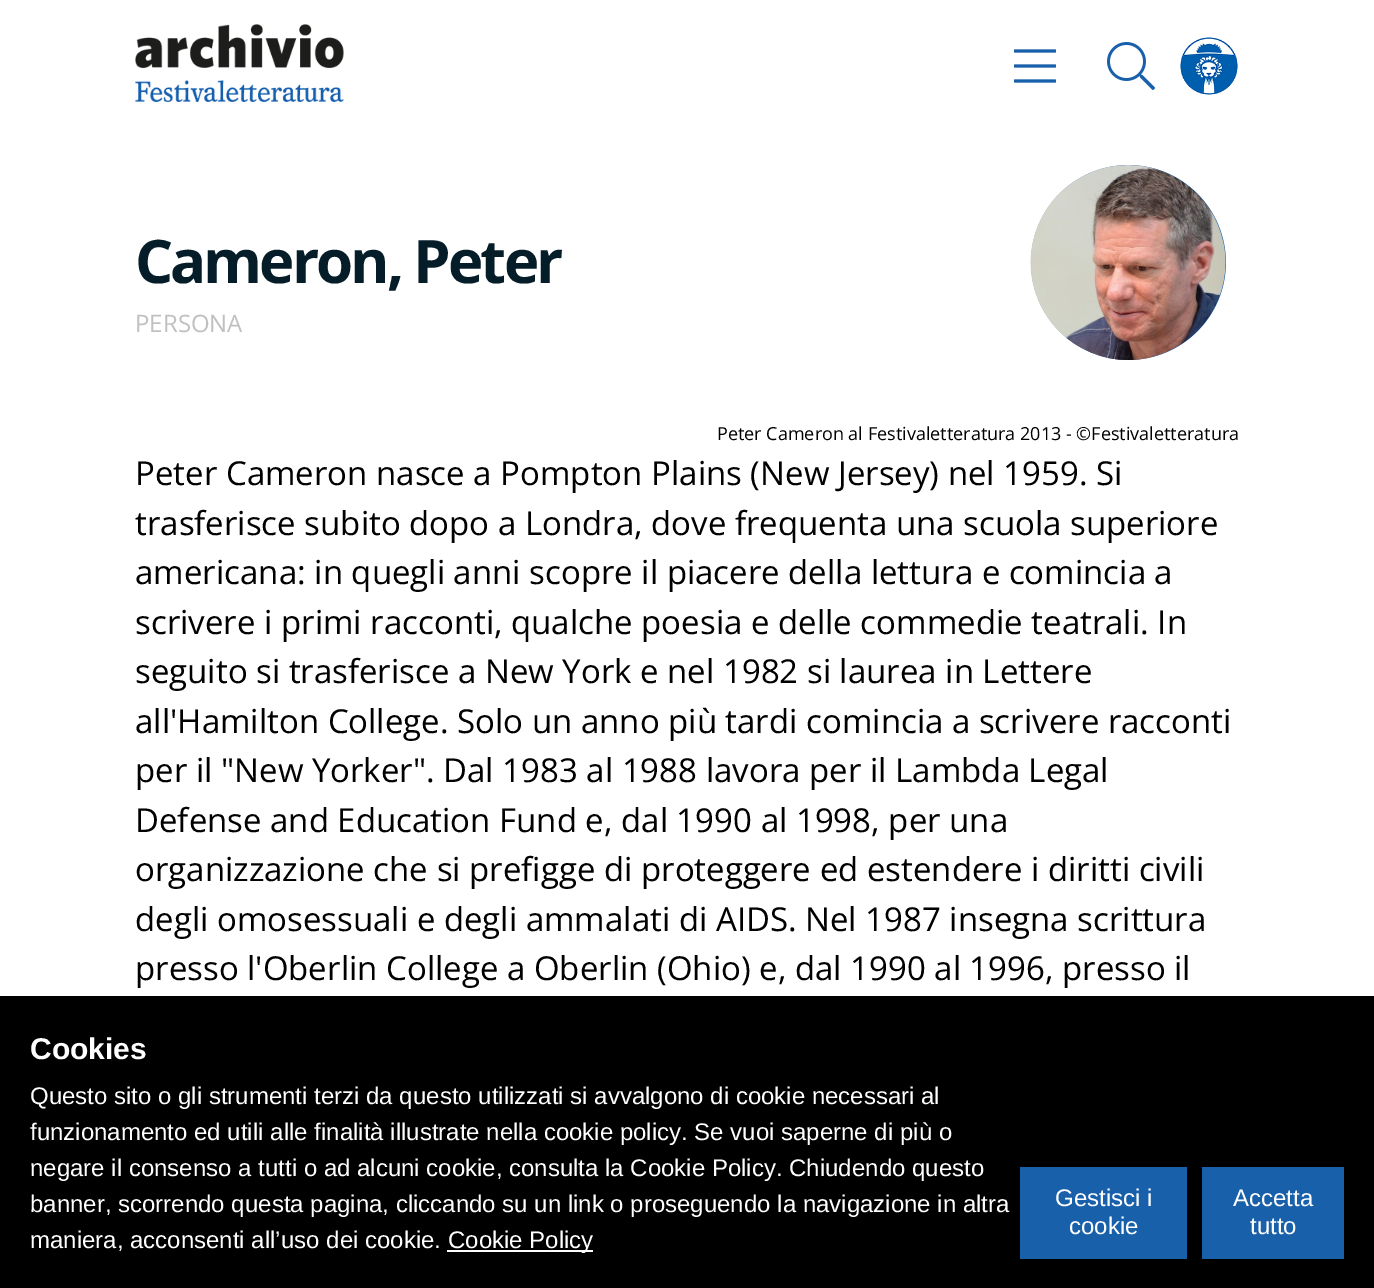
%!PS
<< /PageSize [1374 1288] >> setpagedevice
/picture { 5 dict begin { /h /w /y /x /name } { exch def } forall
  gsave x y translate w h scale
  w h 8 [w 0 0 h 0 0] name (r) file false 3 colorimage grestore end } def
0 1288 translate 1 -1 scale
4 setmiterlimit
1 setgray
0 0 1374 1288 rectfill
(img1.rgb) 135 24 209 78 picture
(img2.rgb) 1014 49 42 34 picture
(img3.rgb) 1107 42 48 48 picture
(img4.rgb) 1180 37 58 58 picture
/OpenSans-Bold [60 0 0 -60 0 0] selectfont
0.016 0.114 0.161 setrgbcolor
135 283 moveto -3 0 (Cameron, Peter) ashow
/OpenSans-Regular [24 0 0 -24 0 0] selectfont
0.753 setgray
135 332 moveto (PERSONA) show
0.098 0.376 0.671 setrgbcolor
newpath 1128.5 262.5 97.5 0 360 arc closepath fill
(img5.rgb) 1030 165 196 195 picture
/OpenSans-Regular [18 0 0 -18 0 0] selectfont
0 setgray
717 440 moveto (Peter Cameron al Festivaletteratura 2013 - ©Festivaletteratura) show
/OpenSans-Regular [33 0 0 -33 0 0] selectfont
135 485 moveto (Peter Cameron nasce a Pompton Plains \(New Jersey\) nel 1959. Si) show
135 535 moveto (trasferisce subito dopo a Londra, dove frequenta una scuola superiore) show
135 584 moveto (americana: in quegli anni scopre il piacere della lettura e comincia a) show
135 634 moveto (scrivere i primi racconti, qualche poesia e delle commedie teatrali. In) show
135 683 moveto (seguito si trasferisce a New York e nel 1982 si laurea in Lettere) show
135 733 moveto (all'Hamilton College. Solo un anno più tardi comincia a scrivere racconti) show
135 782 moveto (per il "New Yorker". Dal 1983 al 1988 lavora per il Lambda Legal) show
135 832 moveto (Defense and Education Fund e, dal 1990 al 1998, per una) show
135 881 moveto (organizzazione che si prefigge di proteggere ed estendere i diritti civili) show
135 931 moveto (degli omosessuali e degli ammalati di AIDS. Nel 1987 insegna scrittura) show
135 980 moveto (presso l'Oberlin College a Oberlin \(Ohio\) e, dal 1990 al 1996, presso il) show
0 996 1374 292 rectfill
/LiberationSans-Bold [30 0 0 -30 0 0] selectfont
1 setgray
30 1059 moveto (Cookies) show
/LiberationSans-Regular [24 0 0 -24 0 0] selectfont
30 1104 moveto (Questo sito o gli strumenti terzi da questo utilizzati si avvalgono di cookie necessari al) show
30 1140 moveto (funzionamento ed utili alle finalità illustrate nella cookie policy. Se vuoi saperne di più o) show
30 1176 moveto (negare il consenso a tutti o ad alcuni cookie, consulta la Cookie Policy. Chiudendo questo) show
30 1212 moveto (banner, scorrendo questa pagina, cliccando su un link o proseguendo la navigazione in altra) show
30 1248 moveto (maniera, acconsenti all’uso dei cookie.) show
447 1250 146 2 rectfill
448 1248 moveto (Cookie Policy) show
0.098 0.376 0.671 setrgbcolor
1020 1167 167 92 rectfill
1 setgray
1055 1206 moveto (Gestisci i) show
1069 1234 moveto (cookie) show
0.098 0.376 0.671 setrgbcolor
1202 1167 142 92 rectfill
1 setgray
1233 1206 moveto (Accetta) show
1250 1234 moveto (tutto) show
showpage
